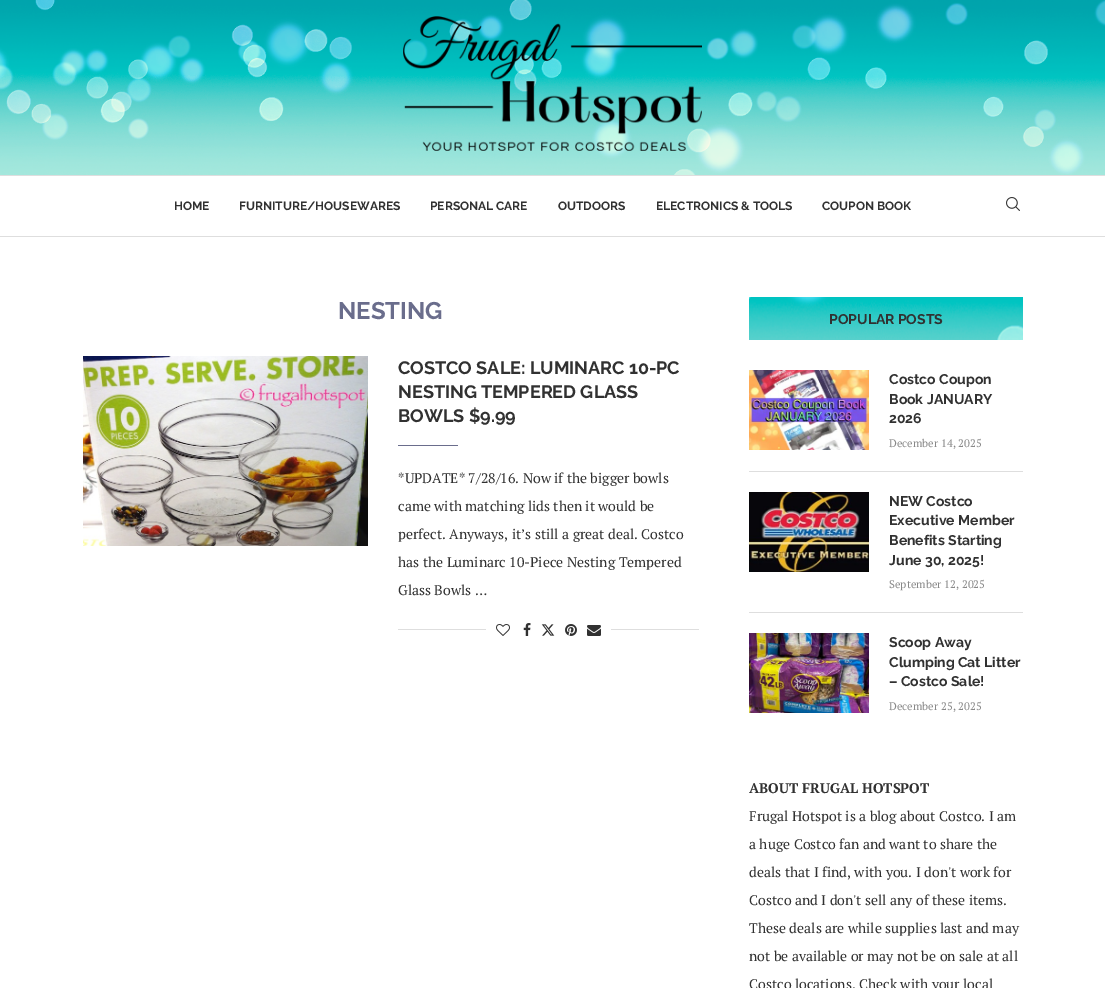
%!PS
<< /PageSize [1105 988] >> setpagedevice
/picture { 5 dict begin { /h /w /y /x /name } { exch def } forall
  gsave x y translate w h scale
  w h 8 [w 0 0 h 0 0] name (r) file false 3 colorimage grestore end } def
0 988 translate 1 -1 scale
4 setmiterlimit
1 setgray
0 0 1105 988 rectfill
(img1.rgb) 0 0 1105 175 picture
(img2.rgb) 403 16 299 135 picture
0.871 setgray
0 175 1105 1 rectfill
0 236 1105 1 rectfill
/Raleway-Bold [12 0 0 -12 0 0] selectfont
0.192 setgray
174 210 moveto (HOME) show
239 210 moveto (FURNITURE/HOUSEWARES) show
430 210 moveto (PERSONAL CARE) show
558 210 moveto (OUTDOORS) show
656 210 moveto (ELECTRONICS & TOOLS) show
822 210 moveto (COUPON BOOK) show
(img3.rgb) 1006 197 14 14 picture
/Raleway-Bold [24 0 0 -24 0 0] selectfont
0.416 0.427 0.549 setrgbcolor
338 319 moveto (NESTING) show
(img4.rgb) 83 356 285 190 picture
/Raleway-Bold [18 0 0 -18 0 0] selectfont
0.192 setgray
398 374 moveto (COSTCO SALE: LUMINARC 10-PC) show
398 398 moveto (NESTING TEMPERED GLASS) show
398 422 moveto (BOWLS $9.99) show
0.416 0.427 0.549 setrgbcolor
398 445 60 1 rectfill
/PTSerif-Regular [14 0 0 -14 0 0] selectfont
0.192 setgray
398 483 moveto (*UPDATE* 7/28/16. Now if the bigger bowls) show
398 511 moveto (came with matching lids then it would be) show
398 539 moveto (perfect. Anyways, it’s still a great deal. Costco) show
398 567 moveto (has the Luminarc 10-Piece Nesting Tempered) show
398 595 moveto (Glass Bowls …) show
0.871 setgray
398 629 301 1 rectfill
1 setgray
486 629 125 1 rectfill
(img5.rgb) 496 624 14 12 picture
(img6.rgb) 523 623 8 13 picture
(img7.rgb) 541 624 14 12 picture
(img8.rgb) 565 624 12 12 picture
(img9.rgb) 587 625 14 11 picture
(img10.rgb) 749 297 274 43 picture
/Raleway-Bold [14 0 0 -14 0 0] selectfont
0.192 setgray
829 324 moveto (POPULAR POSTS) show
0.871 setgray
749 471 274 1 rectfill
(img11.rgb) 749 370 120 80 picture
0.192 setgray
889 384 moveto (Costco Coupon) show
889 404 moveto (Book JANUARY) show
889 423 moveto (2026) show
/PTSerif-Regular [11 0 0 -11 0 0] selectfont
0.533 setgray
889 447 moveto (December 14, 2025) show
0.871 setgray
749 612 274 1 rectfill
(img12.rgb) 749 492 120 80 picture
/Raleway-Bold [14 0 0 -14 0 0] selectfont
0.192 setgray
889 506 moveto (NEW Costco) show
889 525 moveto (Executive Member) show
889 545 moveto (Benefits Starting) show
889 565 moveto (June 30, 2025!) show
/PTSerif-Regular [11 0 0 -11 0 0] selectfont
0.533 setgray
889 588 moveto (September 12, 2025) show
(img13.rgb) 749 633 120 80 picture
/Raleway-Bold [14 0 0 -14 0 0] selectfont
0.192 setgray
889 647 moveto (Scoop Away) show
889 667 moveto (Clumping Cat Litter) show
889 686 moveto (– Costco Sale!) show
/PTSerif-Regular [11 0 0 -11 0 0] selectfont
0.533 setgray
889 710 moveto (December 25, 2025) show
/PTSerif-Bold [14 0 0 -14 0 0] selectfont
0.192 setgray
749 793 moveto (ABOUT FRUGAL HOTSPOT) show
/PTSerif-Regular [14 0 0 -14 0 0] selectfont
749 821 moveto (Frugal Hotspot is a blog about Costco. I am) show
749 849 moveto (a huge Costco fan and want to share the) show
749 877 moveto (deals that I find, with you. I don't work for) show
749 905 moveto (Costco and I don't sell any of these items.) show
749 933 moveto (These deals are while supplies last and may) show
749 961 moveto (not be available or may not be on sale at all) show
749 989 moveto (Costco locations. Check with your local) show
showpage
